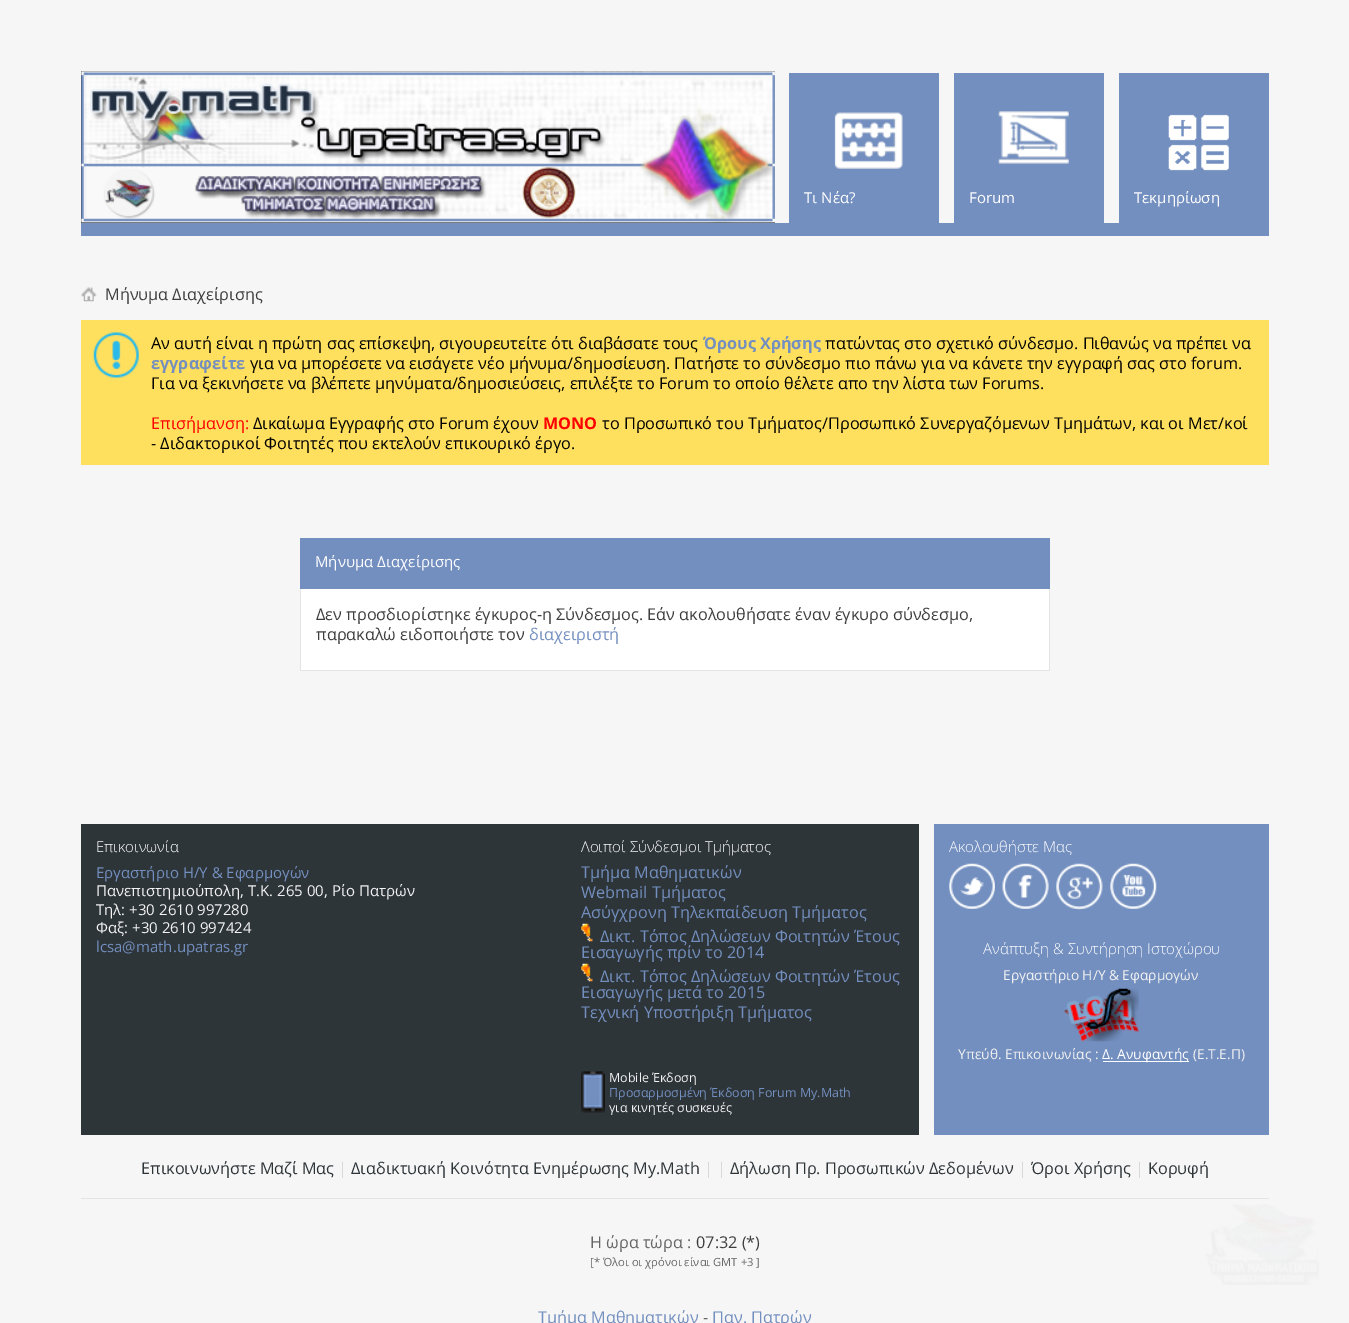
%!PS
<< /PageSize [1349 1323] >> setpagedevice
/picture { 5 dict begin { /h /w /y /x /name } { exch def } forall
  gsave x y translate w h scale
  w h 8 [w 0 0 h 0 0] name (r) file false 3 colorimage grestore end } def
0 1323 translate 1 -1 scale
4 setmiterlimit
0.965 setgray
0 0 1349 1323 rectfill
0.451 0.561 0.749 setrgbcolor
81 73 1188 163 rectfill
0 setgray
81 71 694 152 rectfill
(img1.rgb) 81 71 694 152 picture
0.965 setgray
775 73 14 150 rectfill
(img2.rgb) 834 112 69 57 picture
/OpenSans-Regular [15 0 0 -15 0 0] selectfont
1 setgray
804 203 moveto (Τι Νέα?) show
0.965 setgray
939 73 15 150 rectfill
(img3.rgb) 998 111 71 53 picture
1 setgray
969 203 moveto (Forum) show
0.965 setgray
1104 73 15 150 rectfill
(img4.rgb) 1168 114 61 57 picture
1 setgray
1134 203 moveto (Τεκμηρίωση) show
(img5.rgb) 81 287 16 15 picture
/OpenSans-Regular [16.25 0 0 -16.25 0 0] selectfont
0.243 setgray
105 300 moveto (Mήνυμα Διαχείρισης) show
1 0.875 0.369 setrgbcolor
81 320 1188 145 rectfill
(img6.rgb) 93 332 46 46 picture
0 setgray
151 349 moveto (Αν αυτή είναι η πρώτη σας επίσκεψη, σιγουρευτείτε ότι διαβάσατε τους) show
/OpenSans-Bold [16.25 0 0 -16.25 0 0] selectfont
0.451 0.561 0.749 setrgbcolor
703 349 moveto (Όρους Χρήσης) show
/OpenSans-Regular [16.25 0 0 -16.25 0 0] selectfont
0 setgray
825 349 moveto (πατώντας στο σχετικό σύνδεσμο. Πιθανώς να πρέπει να) show
/OpenSans-Bold [16.25 0 0 -16.25 0 0] selectfont
0.451 0.561 0.749 setrgbcolor
151 369 moveto (εγγραφείτε) show
/OpenSans-Regular [16.25 0 0 -16.25 0 0] selectfont
0 setgray
250 369 moveto (για να μπορέσετε να εισάγετε νέο μήνυμα/δημοσίευση. Πατήστε το σύνδεσμο πιο πάνω για να κάνετε την εγγραφή σας στο forum.) show
151 389 moveto (Για να ξεκινήσετε να βλέπετε μηνύματα/δημοσιεύσεις, επιλέξτε το Forum το οποίο θέλετε απο την λίστα των Forums.) show
1 0 0 setrgbcolor
151 429 moveto (Επισήμανση:) show
0 setgray
253 429 moveto (Δικαίωμα Εγγραφής στο Forum έχουν) show
/OpenSans-Bold [16.25 0 0 -16.25 0 0] selectfont
1 0 0 setrgbcolor
543 429 moveto (MONO) show
/OpenSans-Regular [16.25 0 0 -16.25 0 0] selectfont
0 setgray
602 429 moveto (το Προσωπικό του Τμήματος/Προσωπικό Συνεργαζόμενων Τμημάτων, και οι Μετ/κοί) show
151 449 moveto (- Διδακτορικοί Φοιτητές που εκτελούν επικουρικό έργο.) show
0.451 0.561 0.749 setrgbcolor
300 538 750 51 rectfill
/OpenSans-Regular [15 0 0 -15 0 0] selectfont
1 setgray
315 567 moveto (Mήνυμα Διαχείρισης) show
301 589 748 81 rectfill
0.894 setgray
1049 589 1 82 rectfill
300 670 750 1 rectfill
300 589 1 82 rectfill
/OpenSans-Regular [16.25 0 0 -16.25 0 0] selectfont
0.243 setgray
316 620 moveto (Δεν προσδιορίστηκε έγκυρος-η Σύνδεσμος. Εάν ακολουθήσατε έναν έγκυρο σύνδεσμο,) show
316 640 moveto (παρακαλώ ειδοποιήστε τον) show
0.451 0.561 0.749 setrgbcolor
529 640 moveto (διαχειριστή) show
0.18 0.208 0.224 setrgbcolor
81 824 838 311 rectfill
/OpenSans-Light [15 0 0 -15 0 0] selectfont
1 setgray
96 852 moveto (Επικοινωνία) show
/OpenSans-Regular [15 0 0 -15 0 0] selectfont
0.451 0.561 0.749 setrgbcolor
96 878 moveto (Εργαστήριο Η/Υ & Εφαρμογών) show
0.949 setgray
96 896 moveto (Πανεπιστημιούπολη, T.K. 265 00, Ρίο Πατρών) show
96 915 moveto (Τηλ: +30 2610 997280) show
96 933 moveto (Φαξ: +30 2610 997424) show
0.451 0.561 0.749 setrgbcolor
96 952 moveto (lcsa@math.upatras.gr) show
/OpenSans-Light [15 0 0 -15 0 0] selectfont
1 setgray
581 852 moveto (Λοιποί Σύνδεσμοι Τμήματος) show
/OpenSans-Regular [16.25 0 0 -16.25 0 0] selectfont
0.451 0.561 0.749 setrgbcolor
581 878 moveto (Τμήμα Μαθηματικών) show
581 898 moveto (Webmail Τμήματος) show
581 918 moveto (Ασύγχρονη Τηλεκπαίδευση Τμήματος) show
(img7.rgb) 581 923 12 19 picture
600 942 moveto (Δικτ. Τόπος Δηλώσεων Φοιτητών Έτους) show
581 958 moveto (Εισαγωγής πρίν το 2014) show
(img7.rgb) 581 963 12 19 picture
600 982 moveto (Δικτ. Τόπος Δηλώσεων Φοιτητών Έτους) show
581 998 moveto (Εισαγωγής μετά το 2015) show
581 1018 moveto (Τεχνική Υποστήριξη Τμήματος) show
(img8.rgb) 581 1071 24 42 picture
/OpenSans-Regular [12.5 0 0 -12.5 0 0] selectfont
0.949 setgray
609 1082 moveto (Mobile Έκδοση) show
0.451 0.561 0.749 setrgbcolor
609 1097 moveto (Προσαρμοσμένη Έκδοση Forum My.Math) show
0.949 setgray
609 1112 moveto (για κινητές συσκευές) show
0.451 0.561 0.749 setrgbcolor
934 824 335 311 rectfill
/OpenSans-Light [15 0 0 -15 0 0] selectfont
1 setgray
949 852 moveto (Ακολουθήστε Μας) show
(img9.rgb) 948 863 47 46 picture
(img10.rgb) 1002 863 47 46 picture
(img11.rgb) 1056 863 47 47 picture
(img12.rgb) 1110 863 47 46 picture
983 954 moveto (Ανάπτυξη & Συντήρηση Ιστοχώρου) show
/OpenSans-Regular [13.75 0 0 -13.75 0 0] selectfont
0.949 setgray
1003 980 moveto (Εργαστήριο Η/Υ & Εφαρμογών) show
(img13.rgb) 1063 988 76 54 picture
958 1059 moveto (Υπεύθ. Επικοινωνίας :) show
1 setgray
1103 1061 86 1 rectfill
1102 1059 moveto (Δ. Ανυφαντής) show
0.949 setgray
1193 1059 moveto (\(Ε.Τ.Ε.Π\)) show
0.894 setgray
81 1198 1188 1 rectfill
/OpenSans-Regular [16.25 0 0 -16.25 0 0] selectfont
0.18 0.208 0.224 setrgbcolor
141 1174 moveto (Επικοινωνήστε Μαζί Μας) show
0.847 setgray
338 1174 moveto (|) show
0.18 0.208 0.224 setrgbcolor
351 1174 moveto (Διαδικτυακή Κοινότητα Ενημέρωσης Μy.Math) show
0.847 setgray
704 1174 moveto (| |) show
0.18 0.208 0.224 setrgbcolor
730 1174 moveto (Δήλωση Πρ. Προσωπικών Δεδομένων) show
0.847 setgray
1018 1174 moveto (|) show
0.18 0.208 0.224 setrgbcolor
1031 1174 moveto (Όροι Χρήσης) show
0.847 setgray
1135 1174 moveto (|) show
0.18 0.208 0.224 setrgbcolor
1148 1174 moveto (Κορυφή) show
0.4 setgray
590 1248 moveto (Η ώρα τώρα :) show
0.243 setgray
696 1248 moveto (07:32 \(*\)) show
/OpenSans-Regular [11.25 0 0 -11.25 0 0] selectfont
0.4 setgray
590 1266 moveto ([* Όλοι οι χρόνοι είναι GMT +3 ]) show
/OpenSans-Regular [16.25 0 0 -16.25 0 0] selectfont
0.451 0.561 0.749 setrgbcolor
538 1323 moveto (Τμήμα Μαθηματικών) show
0.4 setgray
703 1323 moveto (-) show
0.451 0.561 0.749 setrgbcolor
712 1323 moveto (Παν. Πατρών) show
(img14.rgb) 1206 1204 113 81 picture
showpage
